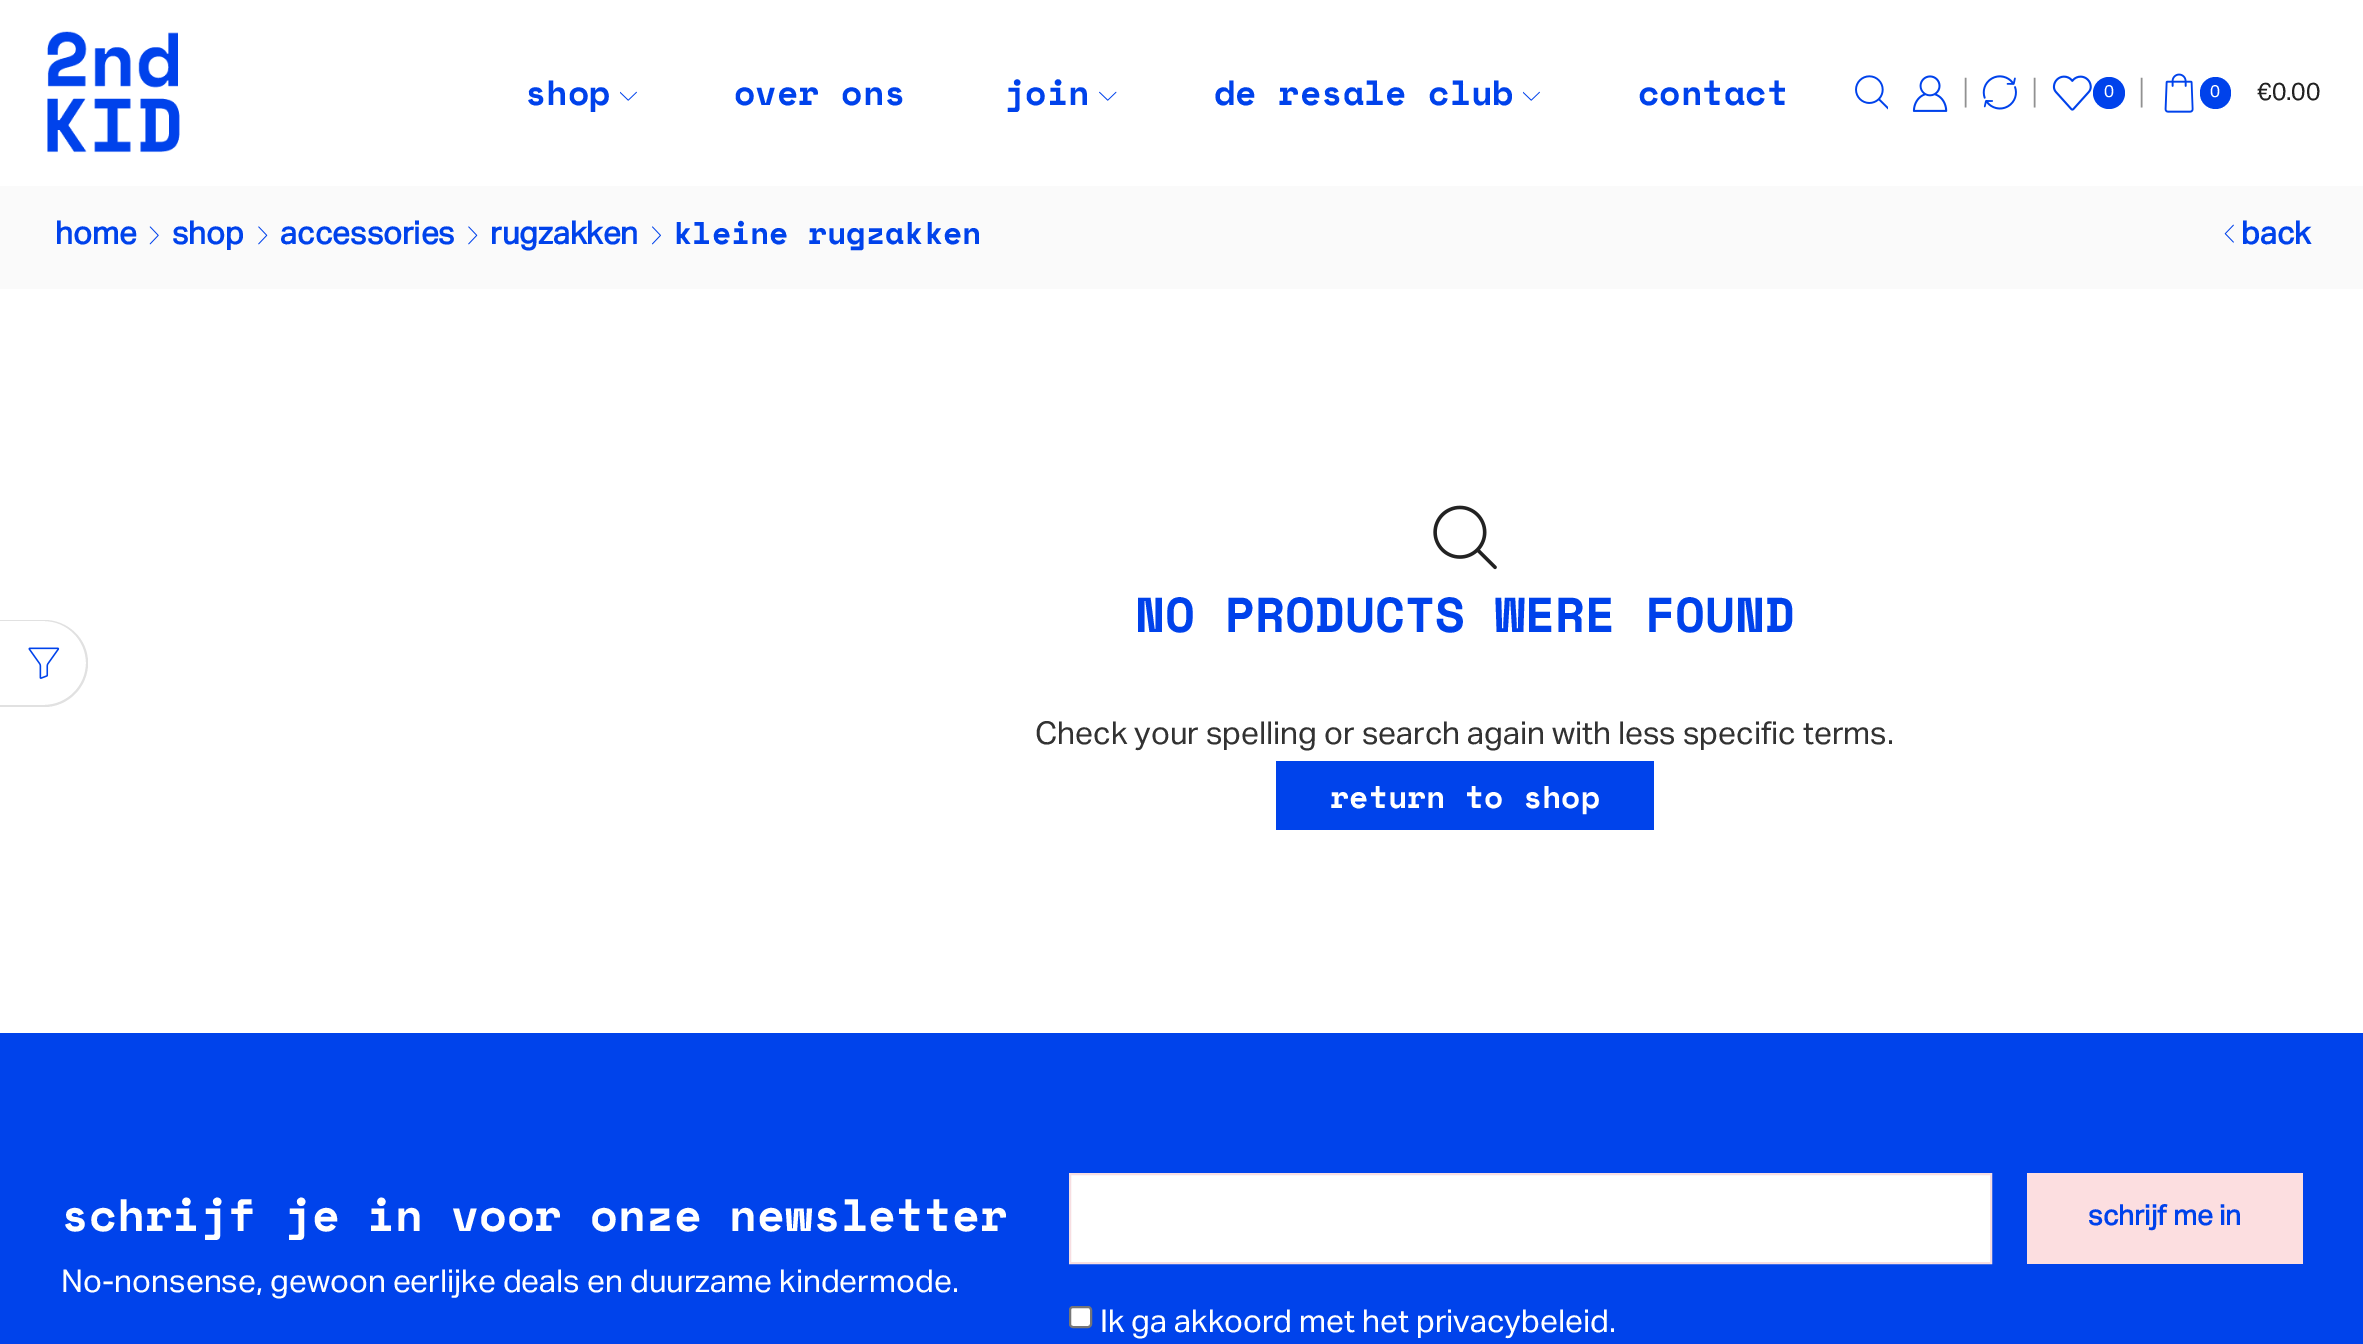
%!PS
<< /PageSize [2363 1344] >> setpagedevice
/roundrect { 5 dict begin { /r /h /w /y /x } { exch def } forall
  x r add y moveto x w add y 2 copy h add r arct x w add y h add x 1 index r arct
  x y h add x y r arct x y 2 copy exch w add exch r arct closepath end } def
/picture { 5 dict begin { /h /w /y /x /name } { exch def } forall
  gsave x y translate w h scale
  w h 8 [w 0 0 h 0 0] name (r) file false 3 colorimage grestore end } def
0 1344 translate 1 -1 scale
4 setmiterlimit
0 0.263 0.922 setrgbcolor
0 0 2363 1344 rectfill
1 setgray
0 0 2363 1033 rectfill
0.882 setgray
newpath 0 620 moveto 44 620 lineto 68 620 88 639 88 663 curveto 88 687 68 707 44 707 curveto 0 707 lineto closepath 0 621 moveto 44 621 lineto 67 621 86 640 86 663 curveto 86 686 67 705 44 705 curveto 0 705 lineto closepath eofill
(img1.rgb) 28 647 32 32 picture
(img2.rgb) 47 31 133 122 picture
/SpaceMono-Bold [35 0 0 -35 0 0] selectfont
0 0.259 0.922 setrgbcolor
525 105 moveto (shop) show
(img3.rgb) 620 91 17 10 picture
734 105 moveto (over ons) show
1004 105 moveto (join) show
(img4.rgb) 1099 91 18 10 picture
1214 105 moveto (de resale club) show
(img3.rgb) 1523 91 17 10 picture
1638 105 moveto (contact) show
(img5.rgb) 1855 75 33 35 picture
(img6.rgb) 1912 75 36 37 picture
/LiberationSerif-Regular [24.5 0 0 -24.5 0 0] selectfont
0.569 setgray
1957 100 moveto (│) show
(img7.rgb) 1982 75 35 35 picture
2026 100 moveto (│) show
(img8.rgb) 2052 75 40 36 picture
0 0.259 0.922 setrgbcolor
newpath 2109 93 16 0 360 arc closepath fill
/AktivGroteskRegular-Regular [17 0 0 -17 0 0] selectfont
1 setgray
2104 97 moveto (0) show
/LiberationSerif-Regular [24.5 0 0 -24.5 0 0] selectfont
0.569 setgray
2133 100 moveto (│) show
(img9.rgb) 2164 73 30 40 picture
0 0.259 0.922 setrgbcolor
2200 77 31 32 15.5 roundrect fill
/AktivGroteskRegular-Regular [17 0 0 -17 0 0] selectfont
1 setgray
2210 97 moveto (0) show
/AktivGroteskRegular-Regular [24.5 0 0 -24.5 0 0] selectfont
0.133 setgray
2257 100 moveto (€0.00) show
0.98 setgray
0 186 2363 103 rectfill
/AktivGroteskRegular-Bold [31.5 0 0 -31.5 0 0] selectfont
0 0.259 0.922 setrgbcolor
55 244 moveto (home) show
(img10.rgb) 149 226 10 19 picture
172 244 moveto (shop) show
(img11.rgb) 258 226 10 19 picture
280 244 moveto (accessories) show
(img11.rgb) 468 226 10 19 picture
490 244 moveto (rugzakken) show
(img12.rgb) 652 226 9 19 picture
/SpaceMono-Bold [31.5 0 0 -31.5 0 0] selectfont
673 244 moveto (kleine rugzakken) show
(img13.rgb) 2224 224 10 19 picture
/AktivGroteskRegular-Bold [31.5 0 0 -31.5 0 0] selectfont
2241 244 moveto (back) show
(img14.rgb) 1433 505 64 65 picture
/SpaceMono-Bold [49 0 0 -49 0 0] selectfont
1135 632 moveto (NO PRODUCTS WERE FOUND) show
/AktivGroteskRegular-Regular [31.5 0 0 -31.5 0 0] selectfont
0.196 setgray
1035 744 moveto (Check your spelling or search again with less specific terms.) show
0 0.263 0.922 setrgbcolor
1276 761 378 69 rectfill
/SpaceMono-Bold [31.5 0 0 -31.5 0 0] selectfont
1 setgray
1330 808 moveto (return to shop) show
/SpaceMono-Bold [45.5 0 0 -45.5 0 0] selectfont
61 1231 moveto (schrijf je in voor onze newsletter) show
/AktivGroteskRegular-Regular [31.5 0 0 -31.5 0 0] selectfont
61 1292 moveto (No-nonsense, gewoon eerlijke deals en duurzame kindermode.) show
newpath 1070 1174 moveto 1991 1174 lineto 1991 1263 lineto 1070 1263 lineto closepath gsave fill grestore
0.969 0.871 0.882 setrgbcolor
2 setlinewidth
stroke
0.988 0.871 0.878 setrgbcolor
2027 1173 276 91 rectfill
/AktivGroteskRegular-Bold [28 0 0 -28 0 0] selectfont
0 0.259 0.922 setrgbcolor
2088 1225 moveto (schrijf me in) show
1 setgray
1070 1307 21 20 3 roundrect gsave fill grestore
0.463 setgray
stroke
/AktivGroteskRegular-Regular [31.5 0 0 -31.5 0 0] selectfont
1 setgray
1100 1332 moveto (Ik ga akkoord met het privacybeleid.) show
showpage
